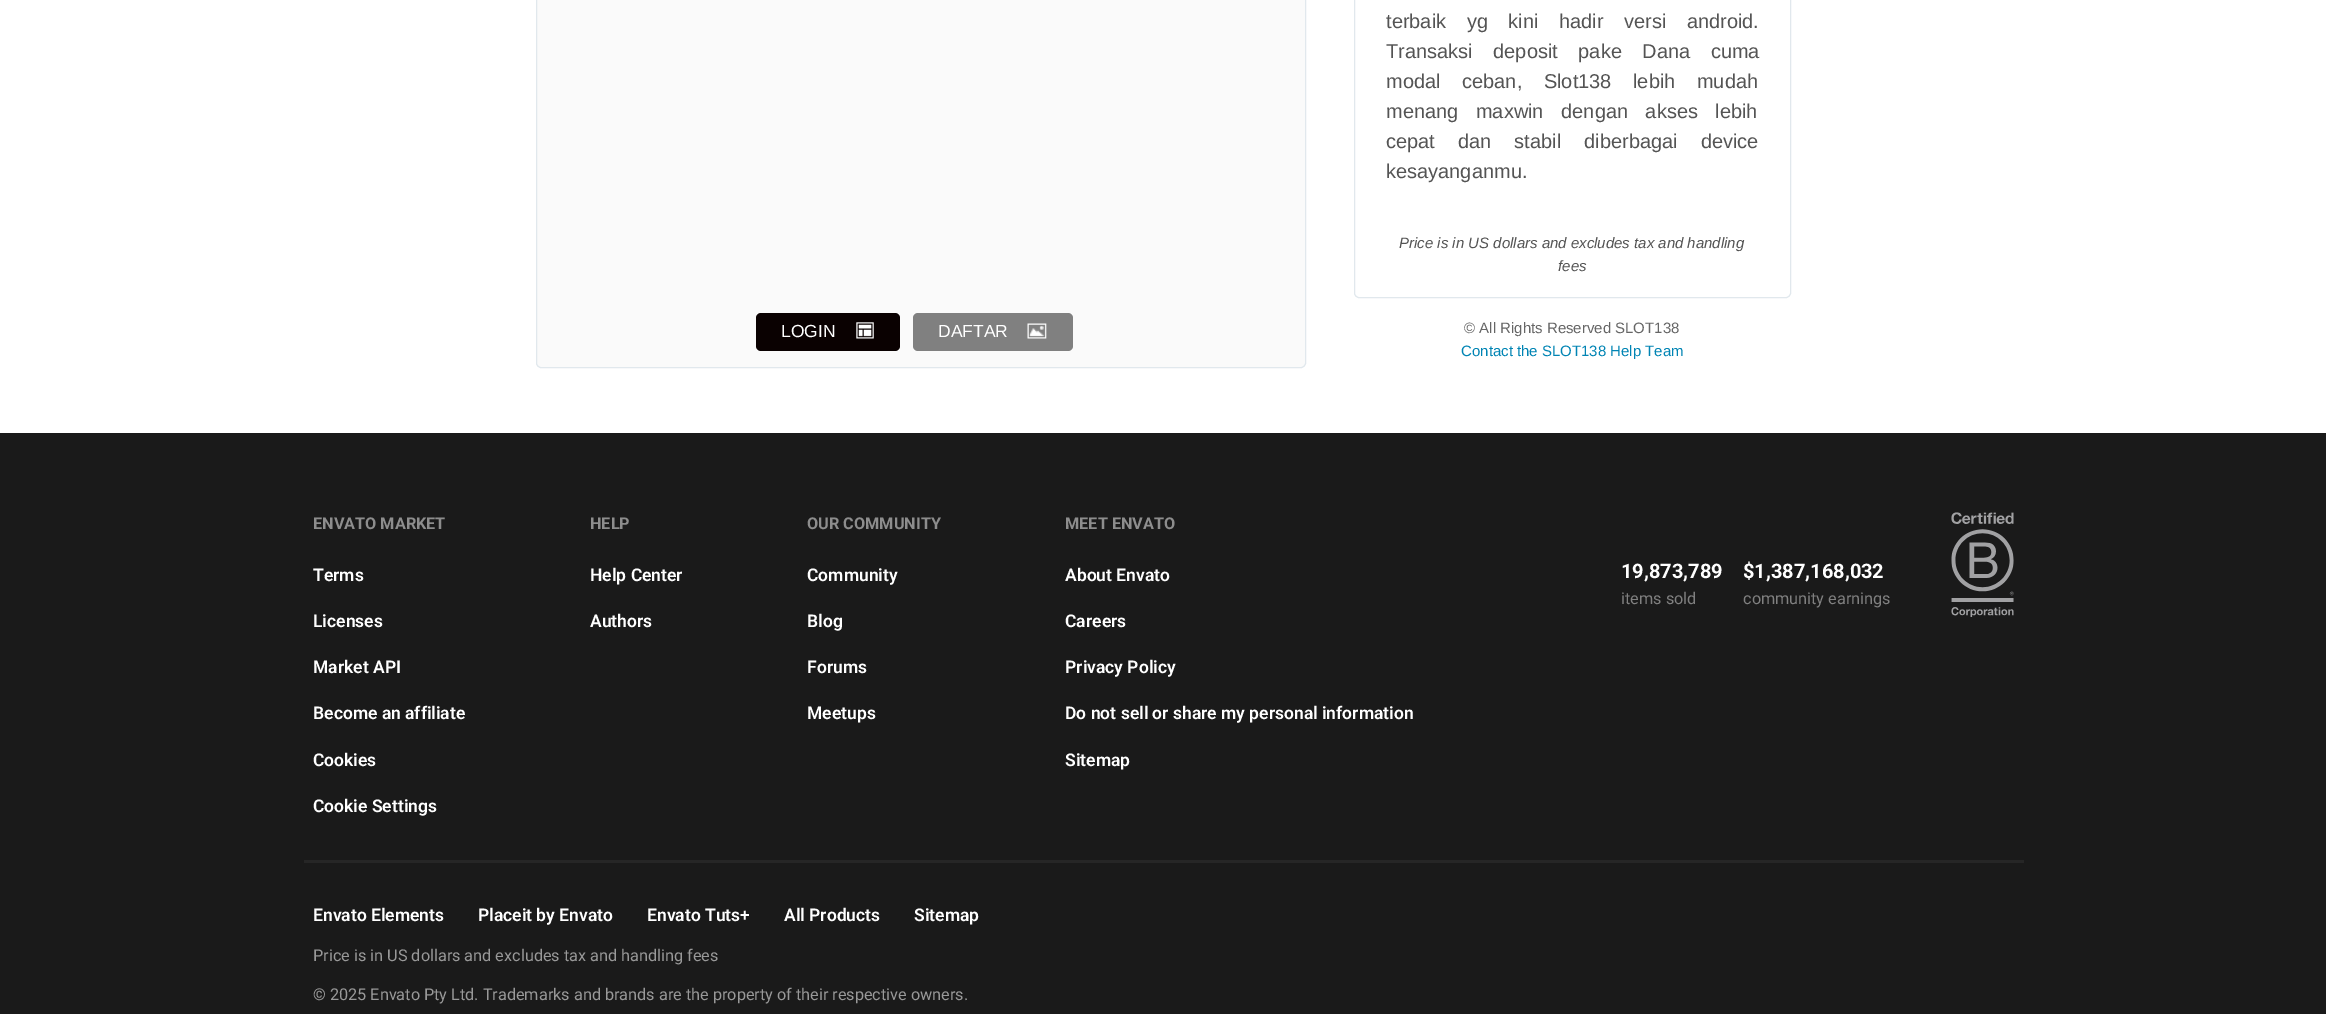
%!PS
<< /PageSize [2326 1014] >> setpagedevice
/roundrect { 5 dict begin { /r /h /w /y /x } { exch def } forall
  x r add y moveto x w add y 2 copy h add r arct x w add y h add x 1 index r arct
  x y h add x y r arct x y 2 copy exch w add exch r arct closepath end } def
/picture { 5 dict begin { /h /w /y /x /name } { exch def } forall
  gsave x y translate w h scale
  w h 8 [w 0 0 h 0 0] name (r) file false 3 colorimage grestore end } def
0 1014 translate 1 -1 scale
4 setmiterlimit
1 setgray
0 0 2326 1014 rectfill
0.98 setgray
536.5 -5.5 769 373 4.5 roundrect gsave fill grestore
0.882 0.91 0.929 setrgbcolor
stroke
0.039 0.004 0.004 setrgbcolor
756 313 144 38 5 roundrect fill
/LiberationSans-Regular [17.5 0 0 -17.5 0 0] selectfont
1 setgray
781 337 moveto (LOGIN) show
(img1.rgb) 856 322 18 17 picture
0.502 setgray
913 313 160 38 5 roundrect fill
1 setgray
938 337 moveto (DAFTAR) show
(img2.rgb) 1027 323 20 16 picture
0.882 0.91 0.929 setrgbcolor
1354.5 -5.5 436 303 4.5 roundrect stroke
/LiberationSans-Regular [20 0 0 -20 0 0] selectfont
0.329 setgray
1386 28 moveto 15 0 32 (terbaik yg kini hadir versi android.) widthshow
1386 58 moveto 15 0 32 (Transaksi deposit pake Dana cuma) widthshow
1386 88 moveto 16 0 32 (modal ceban, Slot138 lebih mudah) widthshow
1386 118 moveto 12 0 32 (menang maxwin dengan akses lebih) widthshow
1386 148 moveto 17.5 0 32 (cepat dan stabil diberbagai device) widthshow
1386 178 moveto (kesayanganmu.) show
/LiberationSans-Italic [15 0 0 -15 0 0] selectfont
1399 248 moveto (Price is in US dollars and excludes tax and handling) show
1558 271 moveto (fees) show
/LiberationSans-Regular [15 0 0 -15 0 0] selectfont
0.4 setgray
1464 333 moveto (© All Rights Reserved SLOT138) show
0 0.518 0.706 setrgbcolor
1461 356 moveto (Contact the SLOT138 Help Team) show
0.102 setgray
0 433 2326 581 rectfill
/Roboto-Bold [16.25 0 0 -16.25 0 0] selectfont
0.553 setgray
313 529 moveto (ENVATO MARKET) show
/Roboto-SemiBold [17.5 0 0 -17.5 0 0] selectfont
1 setgray
313 581 moveto (Terms) show
313 627 moveto (Licenses) show
313 673 moveto (Market API) show
313 719 moveto (Become an affiliate) show
313 766 moveto (Cookies) show
313 812 moveto (Cookie Settings) show
/Roboto-Bold [16.25 0 0 -16.25 0 0] selectfont
0.553 setgray
590 529 moveto (HELP) show
/Roboto-SemiBold [17.5 0 0 -17.5 0 0] selectfont
1 setgray
590 581 moveto (Help Center) show
590 627 moveto (Authors) show
/Roboto-Bold [16.25 0 0 -16.25 0 0] selectfont
0.553 setgray
807 529 moveto (OUR COMMUNITY) show
/Roboto-SemiBold [17.5 0 0 -17.5 0 0] selectfont
1 setgray
807 581 moveto (Community) show
807 627 moveto (Blog) show
807 673 moveto (Forums) show
807 719 moveto (Meetups) show
/Roboto-Bold [16.25 0 0 -16.25 0 0] selectfont
0.553 setgray
1065 529 moveto (MEET ENVATO) show
/Roboto-SemiBold [17.5 0 0 -17.5 0 0] selectfont
1 setgray
1065 581 moveto (About Envato) show
1065 627 moveto (Careers) show
1065 673 moveto (Privacy Policy) show
1065 719 moveto (Do not sell or share my personal information) show
1065 766 moveto (Sitemap) show
/Roboto-Bold [20 0 0 -20 0 0] selectfont
1621 578 moveto (19,873,789) show
/Roboto-Regular [16.25 0 0 -16.25 0 0] selectfont
0.502 setgray
1621 604 moveto (items sold) show
/Roboto-Bold [20 0 0 -20 0 0] selectfont
1 setgray
1743 578 moveto ($1,387,168,032) show
/Roboto-Regular [16.25 0 0 -16.25 0 0] selectfont
0.502 setgray
1743 604 moveto (community earnings) show
(img3.rgb) 1951 512 63 105 picture
0.149 setgray
304 860 1720 3 rectfill
/Roboto-SemiBold [17.5 0 0 -17.5 0 0] selectfont
1 setgray
313 921 moveto (Envato Elements) show
478 921 moveto (Placeit by Envato) show
647 921 moveto (Envato Tuts+) show
784 921 moveto (All Products) show
914 921 moveto (Sitemap) show
/Roboto-Regular [16.25 0 0 -16.25 0 0] selectfont
0.6 setgray
313 961 moveto (Price is in US dollars and excludes tax and handling fees) show
313 1000 moveto (© 2025 Envato Pty Ltd. Trademarks and brands are the property of their respective owners.) show
showpage
